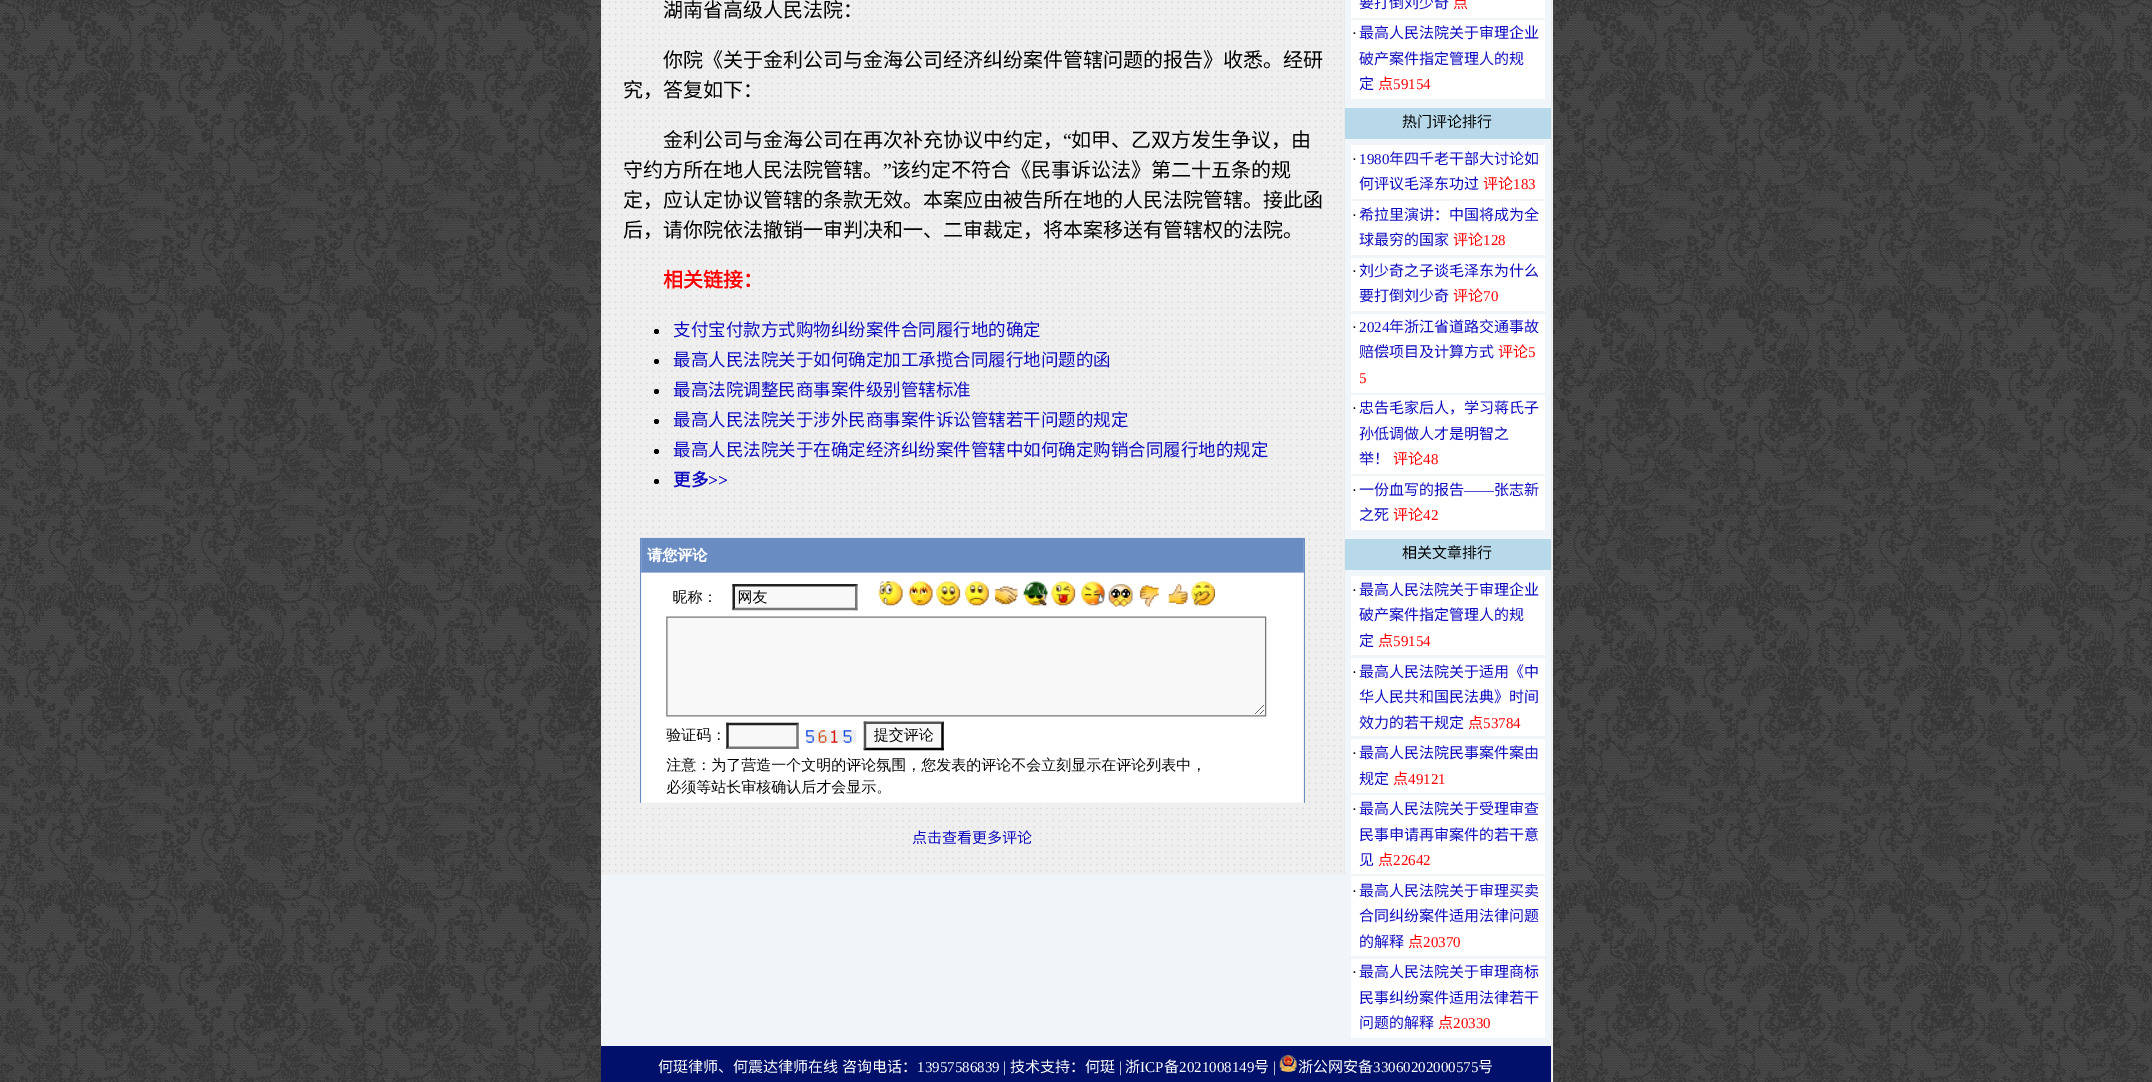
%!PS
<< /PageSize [2152 1082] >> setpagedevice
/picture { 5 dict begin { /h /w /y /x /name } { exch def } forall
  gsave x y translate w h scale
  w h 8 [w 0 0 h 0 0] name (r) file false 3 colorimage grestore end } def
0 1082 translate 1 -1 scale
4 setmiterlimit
1 setgray
0 0 2152 1082 rectfill
(img1.rgb) 0 0 2152 1082 picture
0.937 0.961 0.973 setrgbcolor
601 0 952 1082 rectfill
0.914 setgray
1551 0 1 1082 rectfill
(img2.rgb) 602 0 742 875 picture
1344 0 1 875 rectfill
601 0 1 875 rectfill
/NotoSansCJKSC-Regular [20 0 0 -20 0 0] selectfont
0 setgray
663 17 moveto (湖南省高级人民法院：) show
663 67 moveto (你院《关于金利公司与金海公司经济纠纷案件管辖问题的报告》收悉。经研) show
623 97 moveto (究，答复如下：) show
663 147 moveto (金利公司与金海公司在再次补充协议中约定，) show
/LiberationSerif-Regular [20 0 0 -20 0 0] selectfont
1063 147 moveto (“) show
/NotoSansCJKSC-Regular [20 0 0 -20 0 0] selectfont
1071 147 moveto (如甲、乙双方发生争议，由) show
623 177 moveto (守约方所在地人民法院管辖。) show
/LiberationSerif-Regular [20 0 0 -20 0 0] selectfont
883 177 moveto (”) show
/NotoSansCJKSC-Regular [20 0 0 -20 0 0] selectfont
891 177 moveto (该约定不符合《民事诉讼法》第二十五条的规) show
623 207 moveto (定，应认定协议管辖的条款无效。本案应由被告所在地的人民法院管辖。接此函) show
623 237 moveto (后，请你院依法撤销一审判决和一、二审裁定，将本案移送有管辖权的法院。) show
/NotoSansCJKSC-Bold [20 0 0 -20 0 0] selectfont
1 0 0 setrgbcolor
663 287 moveto (相关链接：) show
0 setgray
newpath 656.5 331.5 2.5 0 360 arc closepath fill
/NotoSansCJKSC-Regular [17.5 0 0 -17.5 0 0] selectfont
0.059 0.047 0.749 setrgbcolor
673 336 moveto (支付宝付款方式购物纠纷案件合同履行地的确定) show
0 setgray
newpath 656.5 361.5 2.5 0 360 arc closepath fill
0.059 0.047 0.749 setrgbcolor
673 366 moveto (最高人民法院关于如何确定加工承揽合同履行地问题的函) show
0 setgray
newpath 656.5 391.5 2.5 0 360 arc closepath fill
0.059 0.047 0.749 setrgbcolor
673 396 moveto (最高法院调整民商事案件级别管辖标准) show
0 setgray
newpath 656.5 421.5 2.5 0 360 arc closepath fill
0.059 0.047 0.749 setrgbcolor
673 426 moveto (最高人民法院关于涉外民商事案件诉讼管辖若干问题的规定) show
0 setgray
newpath 656.5 451.5 2.5 0 360 arc closepath fill
0.059 0.047 0.749 setrgbcolor
673 456 moveto (最高人民法院关于在确定经济纠纷案件管辖中如何确定购销合同履行地的规定) show
0 setgray
newpath 656.5 481.5 2.5 0 360 arc closepath fill
/NotoSansCJKSC-Bold [17.5 0 0 -17.5 0 0] selectfont
0.059 0.047 0.749 setrgbcolor
673 486 moveto (更多) show
/LiberationSerif-Bold [17.5 0 0 -17.5 0 0] selectfont
708 486 moveto (>>) show
(img3.rgb) 640 537 665 266 picture
/NotoSansCJKSC-Regular [15 0 0 -15 0 0] selectfont
912 843 moveto (点击查看更多评论) show
1 setgray
1351 0 194 18 rectfill
0.059 0.047 0.749 setrgbcolor
1359 8 moveto (要打倒刘少奇) show
1 0 0 setrgbcolor
1453 8 moveto (点) show
1 setgray
1351 20 194 79 rectfill
/LiberationSerif-Regular [15 0 0 -15 0 0] selectfont
0 setgray
1352 38 moveto (·) show
/NotoSansCJKSC-Regular [15 0 0 -15 0 0] selectfont
0.059 0.047 0.749 setrgbcolor
1359 38 moveto (最高人民法院关于审理企业) show
1359 64 moveto (破产案件指定管理人的规) show
1359 89 moveto (定) show
1 0 0 setrgbcolor
1378 89 moveto (点) show
/LiberationSerif-Regular [15 0 0 -15 0 0] selectfont
1393 89 moveto (59154) show
0.722 0.851 0.918 setrgbcolor
1345 108 206 31 rectfill
/NotoSansCJKSC-Regular [15 0 0 -15 0 0] selectfont
0 setgray
1402 127 moveto (热门评论排行) show
1 setgray
1351 145 194 54 rectfill
/LiberationSerif-Regular [15 0 0 -15 0 0] selectfont
0 setgray
1352 164 moveto (·) show
0.059 0.047 0.749 setrgbcolor
1359 164 moveto (1980) show
/NotoSansCJKSC-Regular [15 0 0 -15 0 0] selectfont
1389 164 moveto (年四千老干部大讨论如) show
1359 189 moveto (何评议毛泽东功过) show
1 0 0 setrgbcolor
1483 189 moveto (评论) show
/LiberationSerif-Regular [15 0 0 -15 0 0] selectfont
1513 189 moveto (183) show
1 setgray
1351 201 194 54 rectfill
0 setgray
1352 220 moveto (·) show
/NotoSansCJKSC-Regular [15 0 0 -15 0 0] selectfont
0.059 0.047 0.749 setrgbcolor
1359 220 moveto (希拉里演讲：中国将成为全) show
1359 245 moveto (球最穷的国家) show
1 0 0 setrgbcolor
1453 245 moveto (评论) show
/LiberationSerif-Regular [15 0 0 -15 0 0] selectfont
1483 245 moveto (128) show
1 setgray
1351 258 194 53 rectfill
0 setgray
1352 276 moveto (·) show
/NotoSansCJKSC-Regular [15 0 0 -15 0 0] selectfont
0.059 0.047 0.749 setrgbcolor
1359 276 moveto (刘少奇之子谈毛泽东为什么) show
1359 301 moveto (要打倒刘少奇) show
1 0 0 setrgbcolor
1453 301 moveto (评论) show
/LiberationSerif-Regular [15 0 0 -15 0 0] selectfont
1483 301 moveto (70) show
1 setgray
1351 314 194 79 rectfill
0 setgray
1352 332 moveto (·) show
0.059 0.047 0.749 setrgbcolor
1359 332 moveto (2024) show
/NotoSansCJKSC-Regular [15 0 0 -15 0 0] selectfont
1389 332 moveto (年浙江省道路交通事故) show
1359 357 moveto (赔偿项目及计算方式) show
1 0 0 setrgbcolor
1498 357 moveto (评论) show
/LiberationSerif-Regular [15 0 0 -15 0 0] selectfont
1528 357 moveto (5) show
1359 383 moveto (5) show
1 setgray
1351 395 194 79 rectfill
0 setgray
1352 413 moveto (·) show
/NotoSansCJKSC-Regular [15 0 0 -15 0 0] selectfont
0.059 0.047 0.749 setrgbcolor
1359 413 moveto (忠告毛家后人，学习蒋氏子) show
1359 439 moveto (孙低调做人才是明智之) show
1359 464 moveto (举！) show
1 0 0 setrgbcolor
1393 464 moveto (评论) show
/LiberationSerif-Regular [15 0 0 -15 0 0] selectfont
1423 464 moveto (48) show
1 setgray
1351 476 194 54 rectfill
0 setgray
1352 495 moveto (·) show
/NotoSansCJKSC-Regular [15 0 0 -15 0 0] selectfont
0.059 0.047 0.749 setrgbcolor
1359 495 moveto (一份血写的报告) show
/LiberationSerif-Regular [15 0 0 -15 0 0] selectfont
1464 495 moveto (——) show
/NotoSansCJKSC-Regular [15 0 0 -15 0 0] selectfont
1494 495 moveto (张志新) show
1359 520 moveto (之死) show
1 0 0 setrgbcolor
1393 520 moveto (评论) show
/LiberationSerif-Regular [15 0 0 -15 0 0] selectfont
1423 520 moveto (42) show
0.722 0.851 0.918 setrgbcolor
1345 539 206 31 rectfill
/NotoSansCJKSC-Regular [15 0 0 -15 0 0] selectfont
0 setgray
1402 558 moveto (相关文章排行) show
1 setgray
1351 576 194 79 rectfill
/LiberationSerif-Regular [15 0 0 -15 0 0] selectfont
0 setgray
1352 595 moveto (·) show
/NotoSansCJKSC-Regular [15 0 0 -15 0 0] selectfont
0.059 0.047 0.749 setrgbcolor
1359 595 moveto (最高人民法院关于审理企业) show
1359 620 moveto (破产案件指定管理人的规) show
1359 646 moveto (定) show
1 0 0 setrgbcolor
1378 646 moveto (点) show
/LiberationSerif-Regular [15 0 0 -15 0 0] selectfont
1393 646 moveto (59154) show
1 setgray
1351 658 194 78 rectfill
0 setgray
1352 677 moveto (·) show
/NotoSansCJKSC-Regular [15 0 0 -15 0 0] selectfont
0.059 0.047 0.749 setrgbcolor
1359 677 moveto (最高人民法院关于适用《中) show
1359 702 moveto (华人民共和国民法典》时间) show
1359 728 moveto (效力的若干规定) show
1 0 0 setrgbcolor
1468 728 moveto (点) show
/LiberationSerif-Regular [15 0 0 -15 0 0] selectfont
1483 728 moveto (53784) show
1 setgray
1351 739 194 54 rectfill
0 setgray
1352 758 moveto (·) show
/NotoSansCJKSC-Regular [15 0 0 -15 0 0] selectfont
0.059 0.047 0.749 setrgbcolor
1359 758 moveto (最高人民法院民事案件案由) show
1359 784 moveto (规定) show
1 0 0 setrgbcolor
1393 784 moveto (点) show
/LiberationSerif-Regular [15 0 0 -15 0 0] selectfont
1408 784 moveto (49121) show
1 setgray
1351 795 194 79 rectfill
0 setgray
1352 814 moveto (·) show
/NotoSansCJKSC-Regular [15 0 0 -15 0 0] selectfont
0.059 0.047 0.749 setrgbcolor
1359 814 moveto (最高人民法院关于受理审查) show
1359 840 moveto (民事申请再审案件的若干意) show
1359 865 moveto (见) show
1 0 0 setrgbcolor
1378 865 moveto (点) show
/LiberationSerif-Regular [15 0 0 -15 0 0] selectfont
1393 865 moveto (22642) show
1 setgray
1351 876 194 80 rectfill
0 setgray
1352 896 moveto (·) show
/NotoSansCJKSC-Regular [15 0 0 -15 0 0] selectfont
0.059 0.047 0.749 setrgbcolor
1359 896 moveto (最高人民法院关于审理买卖) show
1359 921 moveto (合同纠纷案件适用法律问题) show
1359 947 moveto (的解释) show
1 0 0 setrgbcolor
1408 947 moveto (点) show
/LiberationSerif-Regular [15 0 0 -15 0 0] selectfont
1423 947 moveto (20370) show
1 setgray
1351 959 194 79 rectfill
0 setgray
1352 977 moveto (·) show
/NotoSansCJKSC-Regular [15 0 0 -15 0 0] selectfont
0.059 0.047 0.749 setrgbcolor
1359 977 moveto (最高人民法院关于审理商标) show
1359 1003 moveto (民事纠纷案件适用法律若干) show
1359 1028 moveto (问题的解释) show
1 0 0 setrgbcolor
1438 1028 moveto (点) show
/LiberationSerif-Regular [15 0 0 -15 0 0] selectfont
1453 1028 moveto (20330) show
0 0.063 0.42 setrgbcolor
601 1046 950 36 rectfill
/NotoSansCJKSC-Regular [15 0 0 -15 0 0] selectfont
1 setgray
658 1072 moveto (何珽律师、何震达律师在线) show
842 1072 moveto (咨询电话：) show
/LiberationSerif-Regular [15 0 0 -15 0 0] selectfont
917 1072 moveto (13957586839 |) show
/NotoSansCJKSC-Regular [15 0 0 -15 0 0] selectfont
1010 1072 moveto (技术支持：何珽) show
/LiberationSerif-Regular [15 0 0 -15 0 0] selectfont
1119 1072 moveto (|) show
/NotoSansCJKSC-Regular [15 0 0 -15 0 0] selectfont
1125 1072 moveto (浙) show
/LiberationSerif-Regular [15 0 0 -15 0 0] selectfont
1140 1072 moveto (ICP) show
/NotoSansCJKSC-Regular [15 0 0 -15 0 0] selectfont
1164 1072 moveto (备) show
/LiberationSerif-Regular [15 0 0 -15 0 0] selectfont
1179 1072 moveto (2021008149) show
/NotoSansCJKSC-Regular [15 0 0 -15 0 0] selectfont
1254 1072 moveto (号) show
/LiberationSerif-Regular [15 0 0 -15 0 0] selectfont
1273 1072 moveto (|) show
(img4.rgb) 1279 1054 18 18 picture
/NotoSansCJKSC-Regular [15 0 0 -15 0 0] selectfont
1298 1072 moveto (浙公网安备) show
/LiberationSerif-Regular [15 0 0 -15 0 0] selectfont
1373 1072 moveto (33060202000575) show
/NotoSansCJKSC-Regular [15 0 0 -15 0 0] selectfont
1478 1072 moveto (号) show
showpage
